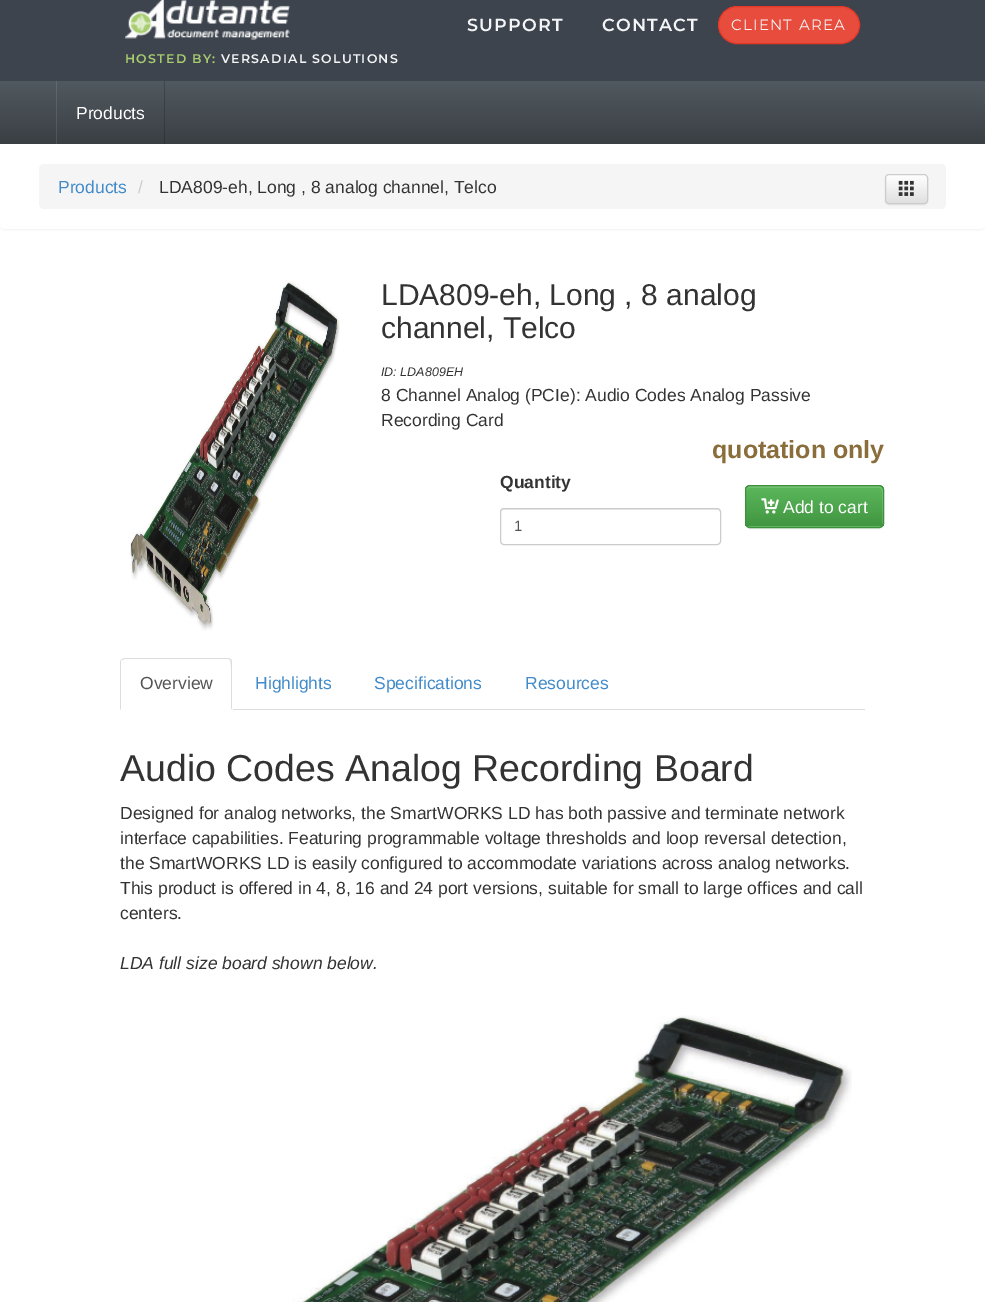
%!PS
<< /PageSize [985 1302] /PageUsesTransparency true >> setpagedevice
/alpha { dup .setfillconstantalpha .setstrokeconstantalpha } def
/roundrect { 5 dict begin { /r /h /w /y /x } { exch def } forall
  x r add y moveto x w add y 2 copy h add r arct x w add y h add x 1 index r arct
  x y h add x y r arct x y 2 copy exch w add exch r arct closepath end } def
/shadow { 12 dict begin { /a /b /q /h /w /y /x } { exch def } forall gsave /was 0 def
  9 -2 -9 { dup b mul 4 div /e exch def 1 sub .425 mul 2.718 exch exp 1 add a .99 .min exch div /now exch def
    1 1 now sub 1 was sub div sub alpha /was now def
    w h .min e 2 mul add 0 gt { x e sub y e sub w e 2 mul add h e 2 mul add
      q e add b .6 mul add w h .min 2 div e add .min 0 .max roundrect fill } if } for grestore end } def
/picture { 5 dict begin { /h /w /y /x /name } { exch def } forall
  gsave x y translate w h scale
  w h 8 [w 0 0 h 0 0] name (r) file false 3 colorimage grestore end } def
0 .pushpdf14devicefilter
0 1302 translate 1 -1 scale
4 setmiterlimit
1 setgray
0 0 985 1302 rectfill
0.243 0.267 0.302 setrgbcolor
0 0 985 81 rectfill
/Montserrat-SemiBold [17.5 0 0 -17.5 0 0] selectfont
0.957 0.961 0.969 setrgbcolor
467 31 moveto 1.25 0 (SUPPORT) ashow
602 31 moveto 1.25 0 (CONTACT) ashow
0.906 0.298 0.235 setrgbcolor
718.5 6.5 141 37 18.5 roundrect gsave fill grestore
0.894 0.216 0.145 setrgbcolor
stroke
/Montserrat-Regular [15 0 0 -15 0 0] selectfont
0.957 0.961 0.969 setrgbcolor
731 30 moveto 1.25 0 (CLIENT AREA) ashow
(img1.rgb) 125 0 165 40 picture
/Montserrat-SemiBold [12.5 0 0 -12.5 0 0] selectfont
0.655 0.804 0.439 setrgbcolor
125 63 moveto 1.25 0 (HOSTED BY:) ashow
0.957 0.961 0.969 setrgbcolor
221 63 moveto 1.25 0 (VERSADIAL SOLUTIONS) ashow
gsave newpath 0 81 moveto 985 81 lineto 985 144 lineto 0 144 lineto closepath clip newpath
<< /ShadingType 2 /ColorSpace /DeviceRGB /Coords [493 81 493 144] /Extend [true true] /Function << /FunctionType 2 /Domain [0 1] /C0 [0.318 0.349 0.376] /C1 [0.227 0.247 0.267] /N 1 >> >> shfill grestore
0 setgray
0 145 985 85 5 1 0.05 shadow
0.2 alpha
164 81 1 63 rectfill
0.1 alpha
1 setgray
56 81 1 63 rectfill
/LiberationSans-Regular [17.5 0 0 -17.5 0 0] selectfont
1 alpha
76 119 moveto (Products) show
0 144 985 85 5 roundrect fill
0.961 setgray
39 164 907 45 5 roundrect fill
0.259 0.545 0.792 setrgbcolor
58 193 moveto (Products) show
0.8 setgray
138 193 moveto (/) show
0.2 setgray
159 193 moveto (LDA809-eh, Long , 8 analog channel, Telco) show
0 setgray
885 175 43 30 4 0.5 0.07 shadow
gsave
885 174 43 30 4 roundrect clip newpath
gsave newpath 885 175 moveto 928 175 lineto 928 203 lineto 885 203 lineto closepath clip newpath
<< /ShadingType 2 /ColorSpace /DeviceRGB /Coords [906 175 906 203] /Extend [true true] /Function << /FunctionType 2 /Domain [0 1] /C0 [1 1 1] /C1 [0.878 0.878 0.878] /N 1 >> >> shfill grestore
grestore
0.8 setgray
885.5 174.5 42 29 3.5 roundrect stroke
(img2.rgb) 898 180 16 16 picture
(img3.rgb) 130 281 210 350 picture
/LiberationSans-Regular [30 0 0 -30 0 0] selectfont
0.2 setgray
381 305 moveto (LDA809-eh, Long , 8 analog) show
381 338 moveto (channel, Telco) show
/LiberationSans-Italic [12.5 0 0 -12.5 0 0] selectfont
381 376 moveto (ID: LDA809EH) show
/LiberationSans-Regular [17.5 0 0 -17.5 0 0] selectfont
381 401 moveto (8 Channel Analog \(PCIe\): Audio Codes Analog Passive) show
381 426 moveto (Recording Card) show
/LiberationSans-Bold [25 0 0 -25 0 0] selectfont
0.541 0.427 0.231 setrgbcolor
712 458 moveto (quotation only) show
/LiberationSans-Bold [17.5 0 0 -17.5 0 0] selectfont
0.2 setgray
500 488 moveto (Quantity) show
0.925 setgray
newpath 504 510 moveto 718 510 lineto 719 510 720 511 720 512 curveto 720 510 719 509 718 509 curveto 504 509 lineto 502 509 501 510 501 512 curveto 501 511 502 510 504 510 curveto closepath fill
0.8 setgray
500.5 508.5 220 36 3.5 roundrect stroke
/LiberationSans-Regular [15 0 0 -15 0 0] selectfont
0.333 setgray
514 531 moveto (1) show
0 setgray
745 486 139 43 5 0.5 0.07 shadow
0.361 0.722 0.361 setrgbcolor
745 485 139 43 5 roundrect fill
gsave
745 485 139 43 5 roundrect clip newpath
gsave newpath 745 486 moveto 884 486 lineto 884 526 lineto 745 526 lineto closepath clip newpath
<< /ShadingType 2 /ColorSpace /DeviceRGB /Coords [814 486 814 526] /Extend [true true] /Function << /FunctionType 2 /Domain [0 1] /C0 [0.361 0.722 0.361] /C1 [0.255 0.588 0.255] /N 1 >> >> shfill grestore
grestore
0.15 alpha
1 setgray
newpath 750 488 moveto 879 488 lineto 881 488 882 489 882 491 curveto 882 525 lineto 883 524 883 523 883 522 curveto 883 490 lineto 883 488 881 486 879 486 curveto 750 486 lineto 748 486 746 488 746 490 curveto 746 491 lineto 746 489 748 488 750 488 curveto closepath fill
1 alpha
0.243 0.561 0.243 setrgbcolor
745.5 485.5 138 42 4.5 roundrect stroke
(img4.rgb) 761 498 18 16 picture
/LiberationSans-Regular [17.5 0 0 -17.5 0 0] selectfont
1 setgray
783 513 moveto (Add to cart) show
0.867 setgray
233 709 632 1 rectfill
newpath 125 658 moveto 122 659 lineto 122 660 lineto 125 659 lineto 228 659 lineto 230 660 lineto 231 659 lineto 228 658 lineto closepath fill
newpath 232 710 moveto 232 661 lineto 231 659 lineto 230 660 lineto 232 662 231 703 231 708 curveto closepath fill
newpath 120 710 moveto 121 709 lineto 121 661 lineto 122 660 lineto 122 659 lineto 121 660 120 661 120 662 curveto closepath fill
0.333 setgray
140 689 moveto (Overview) show
0.259 0.545 0.792 setrgbcolor
255 689 moveto (Highlights) show
374 689 moveto (Specifications) show
525 689 moveto (Resources) show
/LiberationSans-Regular [37.5 0 0 -37.5 0 0] selectfont
0.2 setgray
120 781 moveto (Audio Codes Analog Recording Board) show
/LiberationSans-Regular [17.5 0 0 -17.5 0 0] selectfont
120 819 moveto (Designed for analog networks, the SmartWORKS LD has both passive and terminate network) show
120 844 moveto (interface capabilities. Featuring programmable voltage thresholds and loop reversal detection,) show
120 869 moveto (the SmartWORKS LD is easily configured to accommodate variations across analog networks.) show
120 894 moveto (This product is offered in 4, 8, 16 and 24 port versions, suitable for small to large offices and call) show
120 919 moveto (centers.) show
/LiberationSans-Italic [17.5 0 0 -17.5 0 0] selectfont
120 969 moveto (LDA full size board shown below.) show
(img5.rgb) 293 1015 559 287 picture
.poppdf14devicefilter showpage
